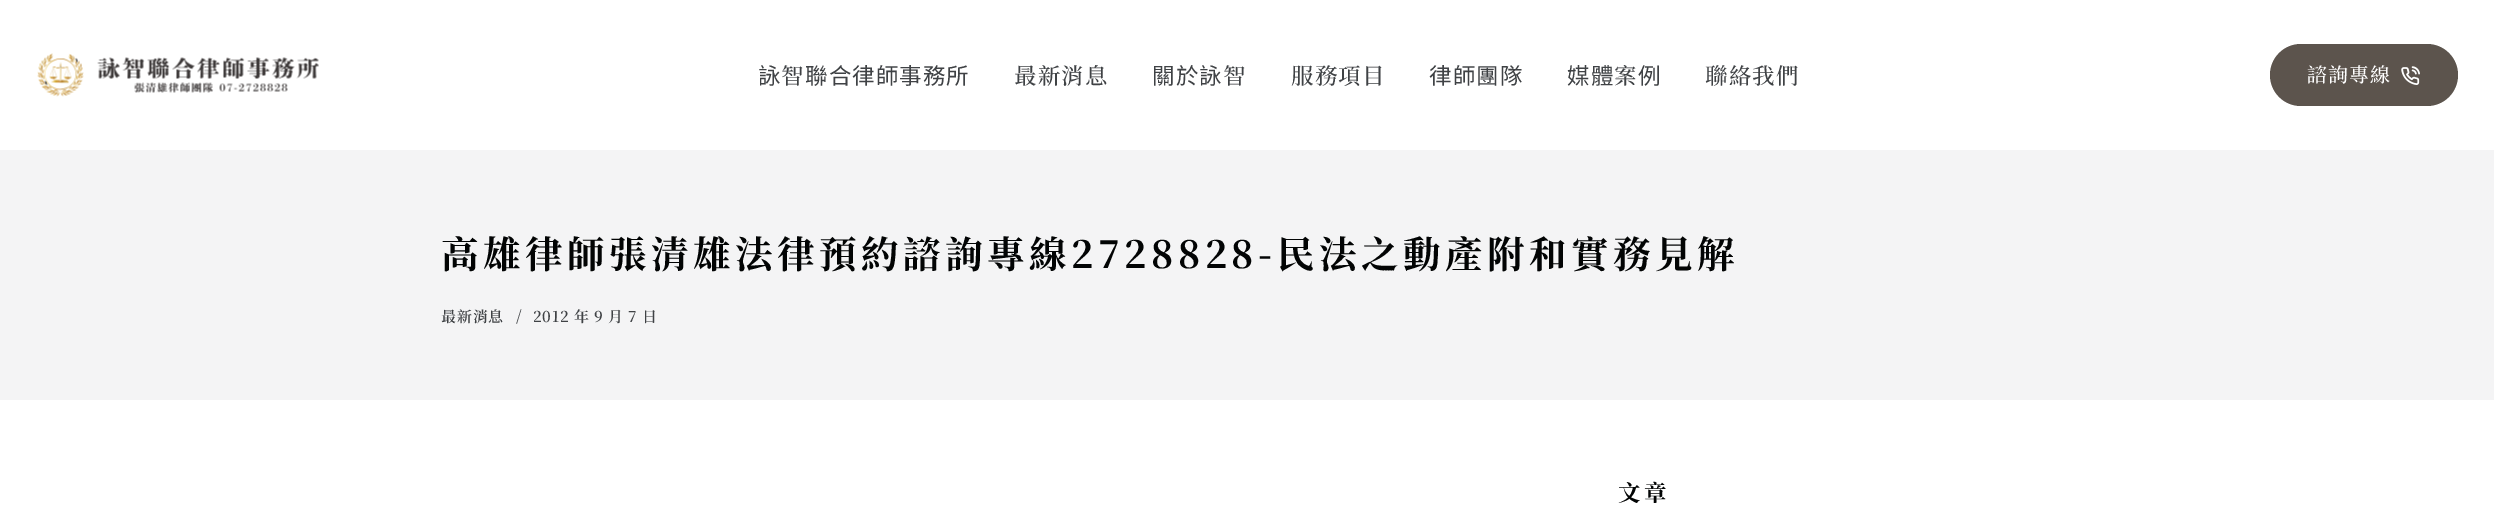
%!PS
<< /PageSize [2494 518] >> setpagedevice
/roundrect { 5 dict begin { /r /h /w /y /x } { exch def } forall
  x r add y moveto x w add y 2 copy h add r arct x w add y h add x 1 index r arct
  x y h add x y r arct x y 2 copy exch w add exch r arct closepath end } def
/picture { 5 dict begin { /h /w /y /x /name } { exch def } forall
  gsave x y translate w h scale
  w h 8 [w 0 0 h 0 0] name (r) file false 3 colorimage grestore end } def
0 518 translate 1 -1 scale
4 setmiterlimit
1 setgray
0 0 2494 518 rectfill
(img1.rgb) 37 53 282 44 picture
/NotoSansCJKTC-Regular [22.5 0 0 -22.5 0 0] selectfont
0.247 0.259 0.271 setrgbcolor
758 84 moveto 1 0 (詠) ashow
/NotoSerifTC-Medium [22.5 0 0 -22.5 0 0] selectfont
781 84 moveto 1 0 (智) ashow
/NotoSansCJKTC-Regular [22.5 0 0 -22.5 0 0] selectfont
805 84 moveto 1 0 (聯合律師事務所) ashow
/NotoSerifTC-Medium [22.5 0 0 -22.5 0 0] selectfont
1014 84 moveto 1 0 (最新消息) ashow
/NotoSansCJKTC-Regular [22.5 0 0 -22.5 0 0] selectfont
1152 84 moveto 1 0 (關於詠) ashow
/NotoSerifTC-Medium [22.5 0 0 -22.5 0 0] selectfont
1223 84 moveto 1 0 (智) ashow
1291 84 moveto 1 0 (服務項目) ashow
/NotoSansCJKTC-Regular [22.5 0 0 -22.5 0 0] selectfont
1429 84 moveto 1 0 (律師團隊) ashow
1567 84 moveto 1 0 (媒體) ashow
/NotoSerifTC-Medium [22.5 0 0 -22.5 0 0] selectfont
1614 84 moveto 1 0 (案) ashow
/NotoSansCJKTC-Regular [22.5 0 0 -22.5 0 0] selectfont
1638 84 moveto 1 0 (例) ashow
/NotoSerifTC-Medium [22.5 0 0 -22.5 0 0] selectfont
1705 84 moveto 1 0 (聯絡我們) ashow
0.361 0.329 0.302 setrgbcolor
2270 44 188 62 31 roundrect fill
/NotoSerifTC-Medium [20 0 0 -20 0 0] selectfont
1 setgray
2307 82 moveto 1 0 (諮詢專線) ashow
(img2.rgb) 2401 66 19 19 picture
0.957 0.957 0.961 setrgbcolor
0 150 2494 250 rectfill
/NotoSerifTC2-Bold [37.5 0 0 -37.5 0 0] selectfont
0.008 0.016 0.016 setrgbcolor
441 268 moveto 4.5 0 (高) ashow
/NotoSerifTC-Bold [37.5 0 0 -37.5 0 0] selectfont
483 268 moveto 4.5 0 (雄) ashow
/NotoSerifTC2-Bold [37.5 0 0 -37.5 0 0] selectfont
525 268 moveto 4.5 0 (律師張清) ashow
/NotoSerifTC-Bold [37.5 0 0 -37.5 0 0] selectfont
693 268 moveto 4.5 0 (雄) ashow
/NotoSerifTC2-Bold [37.5 0 0 -37.5 0 0] selectfont
735 268 moveto 4.5 0 (法律) ashow
/NotoSerifTC-Bold [37.5 0 0 -37.5 0 0] selectfont
819 268 moveto 4.5 0 (預) ashow
/NotoSerifTC2-Bold [37.5 0 0 -37.5 0 0] selectfont
861 268 moveto 4.5 0 (約諮) ashow
/NotoSerifTC-Bold [37.5 0 0 -37.5 0 0] selectfont
945 268 moveto 4.5 0 (詢) ashow
/NotoSerifTC2-Bold [37.5 0 0 -37.5 0 0] selectfont
987 268 moveto 4.5 0 (專線2728828-民法之動產) ashow
/NotoSerifTC-Bold [37.5 0 0 -37.5 0 0] selectfont
1487 268 moveto 4.5 0 (附) ashow
/NotoSerifTC2-Bold [37.5 0 0 -37.5 0 0] selectfont
1529 268 moveto 4.5 0 (和實務見解) ashow
/NotoSerifTC-SemiBold [15 0 0 -15 0 0] selectfont
0.247 0.259 0.271 setrgbcolor
441 322 moveto 0.75 0 (最新消息) ashow
516 321 moveto 0.75 0 (/) ashow
533 322 moveto 0.75 0 (2012 年 9 月 7 日) ashow
/NotoSerifTC-Bold [22.5 0 0 -22.5 0 0] selectfont
0.008 0.016 0.016 setrgbcolor
1618 501 moveto 3 0 (文章) ashow
showpage
